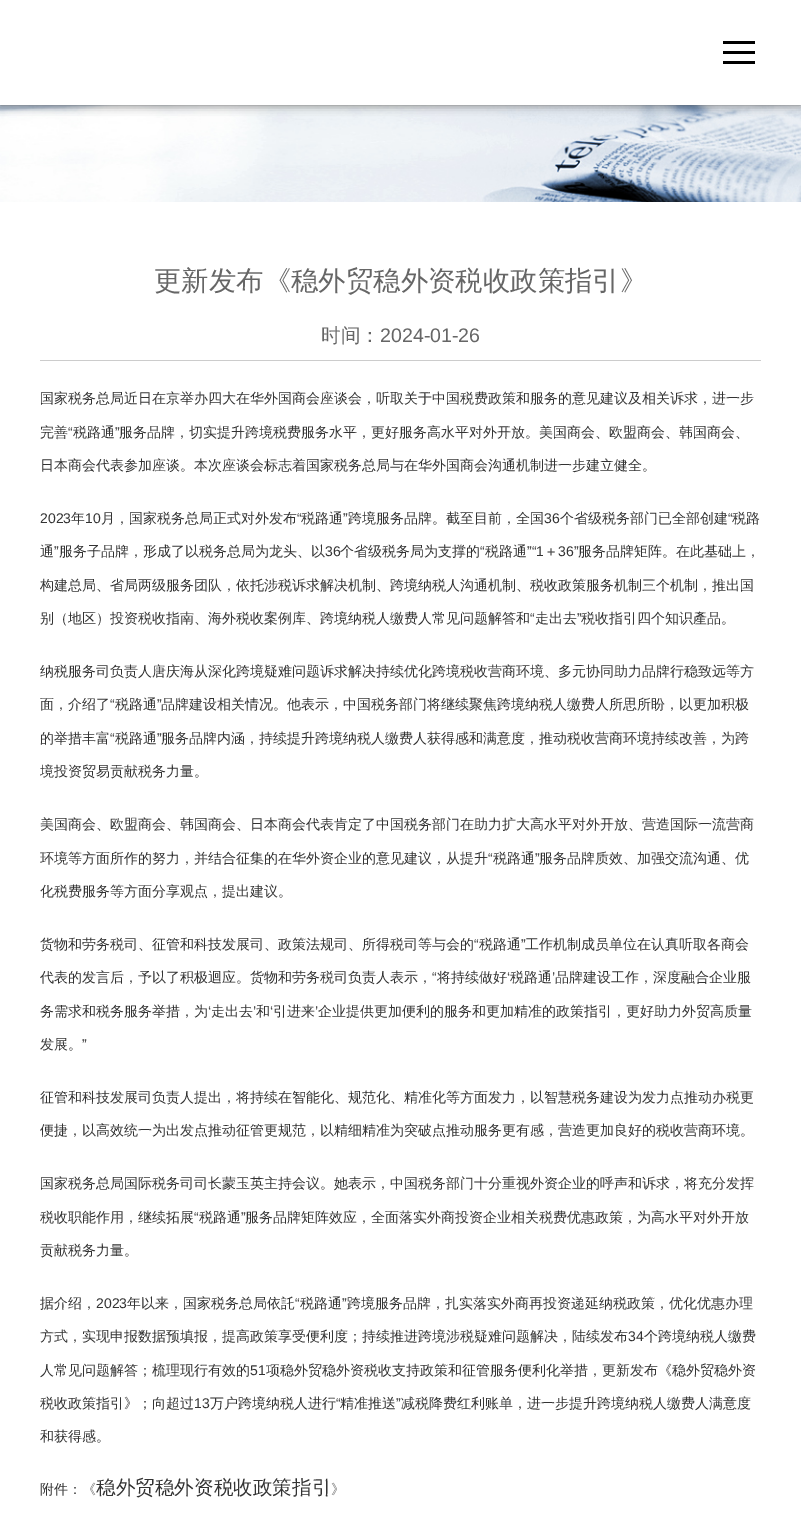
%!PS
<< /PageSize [801 1518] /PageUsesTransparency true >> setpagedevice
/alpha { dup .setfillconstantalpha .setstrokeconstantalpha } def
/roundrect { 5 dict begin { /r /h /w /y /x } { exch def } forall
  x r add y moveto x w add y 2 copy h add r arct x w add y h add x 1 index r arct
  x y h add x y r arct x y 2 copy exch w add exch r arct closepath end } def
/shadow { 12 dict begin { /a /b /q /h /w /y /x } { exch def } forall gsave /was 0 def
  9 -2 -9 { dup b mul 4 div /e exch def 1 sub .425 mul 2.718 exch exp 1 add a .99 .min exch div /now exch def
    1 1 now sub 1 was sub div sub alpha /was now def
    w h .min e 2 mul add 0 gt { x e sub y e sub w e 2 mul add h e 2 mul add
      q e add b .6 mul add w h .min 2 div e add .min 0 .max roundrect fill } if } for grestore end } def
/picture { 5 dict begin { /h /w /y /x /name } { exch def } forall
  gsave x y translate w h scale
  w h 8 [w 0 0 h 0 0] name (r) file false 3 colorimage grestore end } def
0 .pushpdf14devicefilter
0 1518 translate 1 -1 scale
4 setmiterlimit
1 setgray
0 0 801 1518 rectfill
(img1.rgb) 0 105 801 97 picture
0.4 setgray
0 0 801 105 0 5 1 shadow
1 setgray
0 0 801 105 rectfill
0 setgray
723 51 32 3 rectfill
723 41 32 3 rectfill
723 61 32 3 rectfill
0.8 setgray
40 360 721 1 rectfill
/WenQuanYiZenHei-Medium [27.4 0 0 -27.4 0 0] selectfont
0.4 setgray
154 290 moveto (更新发布《稳外贸稳外资税收政策指引》) show
/WenQuanYiZenHei-Medium [19.6 0 0 -19.6 0 0] selectfont
321 342 moveto (时间：) show
/LiberationSans-Regular [19.6 0 0 -19.6 0 0] selectfont
380 342 moveto (2024-01-26) show
/WenQuanYiZenHei-Medium [14 0 0 -14 0 0] selectfont
0.2 setgray
40 403 moveto (国家税务总局近日在京举办四大在华外国商会座谈会，听取关于中国税费政策和服务的意见建议及相关诉求，进一步) show
40 437 moveto (完善) show
/LiberationSans-Regular [14 0 0 -14 0 0] selectfont
68 437 moveto (“) show
/WenQuanYiZenHei-Medium [14 0 0 -14 0 0] selectfont
73 437 moveto (税路通) show
/LiberationSans-Regular [14 0 0 -14 0 0] selectfont
115 437 moveto (”) show
/WenQuanYiZenHei-Medium [14 0 0 -14 0 0] selectfont
119 437 moveto (服务品牌，切实提升跨境税费服务水平，更好服务高水平对外开放。美国商会、欧盟商会、韩国商会、) show
40 470 moveto (日本商会代表参加座谈。本次座谈会标志着国家税务总局与在华外国商会沟通机制进一步建立健全。) show
/LiberationSans-Regular [14 0 0 -14 0 0] selectfont
40 523 moveto (2023) show
/WenQuanYiZenHei-Medium [14 0 0 -14 0 0] selectfont
71 523 moveto (年) show
/LiberationSans-Regular [14 0 0 -14 0 0] selectfont
85 523 moveto (10) show
/WenQuanYiZenHei-Medium [14 0 0 -14 0 0] selectfont
101 523 moveto (月，国家税务总局正式对外发布) show
/LiberationSans-Regular [14 0 0 -14 0 0] selectfont
297 523 moveto (“) show
/WenQuanYiZenHei-Medium [14 0 0 -14 0 0] selectfont
301 523 moveto (税路通) show
/LiberationSans-Regular [14 0 0 -14 0 0] selectfont
343 523 moveto (”) show
/WenQuanYiZenHei-Medium [14 0 0 -14 0 0] selectfont
348 523 moveto (跨境服务品牌。截至目前，全国) show
/LiberationSans-Regular [14 0 0 -14 0 0] selectfont
544 523 moveto (36) show
/WenQuanYiZenHei-Medium [14 0 0 -14 0 0] selectfont
560 523 moveto (个省级税务部门已全部创建) show
/LiberationSans-Regular [14 0 0 -14 0 0] selectfont
728 523 moveto (“) show
/WenQuanYiZenHei-Medium [14 0 0 -14 0 0] selectfont
732 523 moveto (税路) show
40 556 moveto (通) show
/LiberationSans-Regular [14 0 0 -14 0 0] selectfont
54 556 moveto (”) show
/WenQuanYiZenHei-Medium [14 0 0 -14 0 0] selectfont
59 556 moveto (服务子品牌，形成了以税务总局为龙头、以) show
/LiberationSans-Regular [14 0 0 -14 0 0] selectfont
325 556 moveto (36) show
/WenQuanYiZenHei-Medium [14 0 0 -14 0 0] selectfont
340 556 moveto (个省级税务局为支撑的) show
/LiberationSans-Regular [14 0 0 -14 0 0] selectfont
480 556 moveto (“) show
/WenQuanYiZenHei-Medium [14 0 0 -14 0 0] selectfont
485 556 moveto (税路通) show
/LiberationSans-Regular [14 0 0 -14 0 0] selectfont
527 556 moveto (”“1) show
/WenQuanYiZenHei-Medium [14 0 0 -14 0 0] selectfont
544 556 moveto (＋) show
/LiberationSans-Regular [14 0 0 -14 0 0] selectfont
558 556 moveto (36”) show
/WenQuanYiZenHei-Medium [14 0 0 -14 0 0] selectfont
578 556 moveto (服务品牌矩阵。在此基础上，) show
40 590 moveto (构建总局、省局两级服务团队，依托涉税诉求解决机制、跨境纳税人沟通机制、税收政策服务机制三个机制，推出国) show
40 623 moveto (别（地区）投资税收指南、海外税收案例库、跨境纳税人缴费人常见问题解答和) show
/LiberationSans-Regular [14 0 0 -14 0 0] selectfont
530 623 moveto (“) show
/WenQuanYiZenHei-Medium [14 0 0 -14 0 0] selectfont
535 623 moveto (走出去) show
/LiberationSans-Regular [14 0 0 -14 0 0] selectfont
577 623 moveto (”) show
/WenQuanYiZenHei-Medium [14 0 0 -14 0 0] selectfont
581 623 moveto (税收指引四个知识產品。) show
40 676 moveto (纳税服务司负责人唐庆海从深化跨境疑难问题诉求解决持续优化跨境税收营商环境、多元协同助力品牌行稳致远等方) show
40 709 moveto (面，介绍了) show
/LiberationSans-Regular [14 0 0 -14 0 0] selectfont
110 709 moveto (“) show
/WenQuanYiZenHei-Medium [14 0 0 -14 0 0] selectfont
115 709 moveto (税路通) show
/LiberationSans-Regular [14 0 0 -14 0 0] selectfont
157 709 moveto (”) show
/WenQuanYiZenHei-Medium [14 0 0 -14 0 0] selectfont
161 709 moveto (品牌建设相关情况。他表示，中国税务部门将继续聚焦跨境纳税人缴费人所思所盼，以更加积极) show
40 743 moveto (的举措丰富) show
/LiberationSans-Regular [14 0 0 -14 0 0] selectfont
110 743 moveto (“) show
/WenQuanYiZenHei-Medium [14 0 0 -14 0 0] selectfont
115 743 moveto (税路通) show
/LiberationSans-Regular [14 0 0 -14 0 0] selectfont
157 743 moveto (”) show
/WenQuanYiZenHei-Medium [14 0 0 -14 0 0] selectfont
161 743 moveto (服务品牌内涵，持续提升跨境纳税人缴费人获得感和满意度，推动税收营商环境持续改善，为跨) show
40 776 moveto (境投资贸易贡献税务力量。) show
40 829 moveto (美国商会、欧盟商会、韩国商会、日本商会代表肯定了中国税务部门在助力扩大高水平对外开放、营造国际一流营商) show
40 863 moveto (环境等方面所作的努力，并结合征集的在华外资企业的意见建议，从提升) show
/LiberationSans-Regular [14 0 0 -14 0 0] selectfont
488 863 moveto (“) show
/WenQuanYiZenHei-Medium [14 0 0 -14 0 0] selectfont
493 863 moveto (税路通) show
/LiberationSans-Regular [14 0 0 -14 0 0] selectfont
535 863 moveto (”) show
/WenQuanYiZenHei-Medium [14 0 0 -14 0 0] selectfont
539 863 moveto (服务品牌质效、加强交流沟通、优) show
40 896 moveto (化税费服务等方面分享观点，提出建议。) show
40 949 moveto (货物和劳务税司、征管和科技发展司、政策法规司、所得税司等与会的) show
/LiberationSans-Regular [14 0 0 -14 0 0] selectfont
474 949 moveto (“) show
/WenQuanYiZenHei-Medium [14 0 0 -14 0 0] selectfont
479 949 moveto (税路通) show
/LiberationSans-Regular [14 0 0 -14 0 0] selectfont
521 949 moveto (”) show
/WenQuanYiZenHei-Medium [14 0 0 -14 0 0] selectfont
525 949 moveto (工作机制成员单位在认真听取各商会) show
40 982 moveto (代表的发言后，予以了积极迴应。货物和劳务税司负责人表示，) show
/LiberationSans-Regular [14 0 0 -14 0 0] selectfont
432 982 moveto (“) show
/WenQuanYiZenHei-Medium [14 0 0 -14 0 0] selectfont
437 982 moveto (将持续做好) show
/LiberationSans-Regular [14 0 0 -14 0 0] selectfont
507 982 moveto (‘) show
/WenQuanYiZenHei-Medium [14 0 0 -14 0 0] selectfont
510 982 moveto (税路通) show
/LiberationSans-Regular [14 0 0 -14 0 0] selectfont
552 982 moveto (’) show
/WenQuanYiZenHei-Medium [14 0 0 -14 0 0] selectfont
555 982 moveto (品牌建设工作，深度融合企业服) show
40 1016 moveto (务需求和税务服务举措，为) show
/LiberationSans-Regular [14 0 0 -14 0 0] selectfont
208 1016 moveto (‘) show
/WenQuanYiZenHei-Medium [14 0 0 -14 0 0] selectfont
211 1016 moveto (走出去) show
/LiberationSans-Regular [14 0 0 -14 0 0] selectfont
253 1016 moveto (’) show
/WenQuanYiZenHei-Medium [14 0 0 -14 0 0] selectfont
256 1016 moveto (和) show
/LiberationSans-Regular [14 0 0 -14 0 0] selectfont
270 1016 moveto (‘) show
/WenQuanYiZenHei-Medium [14 0 0 -14 0 0] selectfont
273 1016 moveto (引进来) show
/LiberationSans-Regular [14 0 0 -14 0 0] selectfont
315 1016 moveto (’) show
/WenQuanYiZenHei-Medium [14 0 0 -14 0 0] selectfont
318 1016 moveto (企业提供更加便利的服务和更加精准的政策指引，更好助力外贸高质量) show
40 1049 moveto (发展。) show
/LiberationSans-Regular [14 0 0 -14 0 0] selectfont
82 1049 moveto (”) show
/WenQuanYiZenHei-Medium [14 0 0 -14 0 0] selectfont
40 1102 moveto (征管和科技发展司负责人提出，将持续在智能化、规范化、精准化等方面发力，以智慧税务建设为发力点推动办税更) show
40 1135 moveto (便捷，以高效统一为出发点推动征管更规范，以精细精准为突破点推动服务更有感，营造更加良好的税收营商环境。) show
40 1188 moveto (国家税务总局国际税务司司长蒙玉英主持会议。她表示，中国税务部门十分重视外资企业的呼声和诉求，将充分发挥) show
40 1222 moveto (税收职能作用，继续拓展) show
/LiberationSans-Regular [14 0 0 -14 0 0] selectfont
194 1222 moveto (“) show
/WenQuanYiZenHei-Medium [14 0 0 -14 0 0] selectfont
199 1222 moveto (税路通) show
/LiberationSans-Regular [14 0 0 -14 0 0] selectfont
241 1222 moveto (”) show
/WenQuanYiZenHei-Medium [14 0 0 -14 0 0] selectfont
245 1222 moveto (服务品牌矩阵效应，全面落实外商投资企业相关税费优惠政策，为高水平对外开放) show
40 1255 moveto (贡献税务力量。) show
40 1308 moveto (据介绍，) show
/LiberationSans-Regular [14 0 0 -14 0 0] selectfont
96 1308 moveto (2023) show
/WenQuanYiZenHei-Medium [14 0 0 -14 0 0] selectfont
127 1308 moveto (年以来，国家税务总局依託) show
/LiberationSans-Regular [14 0 0 -14 0 0] selectfont
295 1308 moveto (“) show
/WenQuanYiZenHei-Medium [14 0 0 -14 0 0] selectfont
300 1308 moveto (税路通) show
/LiberationSans-Regular [14 0 0 -14 0 0] selectfont
342 1308 moveto (”) show
/WenQuanYiZenHei-Medium [14 0 0 -14 0 0] selectfont
347 1308 moveto (跨境服务品牌，扎实落实外商再投资递延纳税政策，优化优惠办理) show
40 1341 moveto (方式，实现申报数据预填报，提高政策享受便利度；持续推进跨境涉税疑难问题解决，陆续发布) show
/LiberationSans-Regular [14 0 0 -14 0 0] selectfont
628 1341 moveto (34) show
/WenQuanYiZenHei-Medium [14 0 0 -14 0 0] selectfont
644 1341 moveto (个跨境纳税人缴费) show
40 1375 moveto (人常见问题解答；梳理现行有效的) show
/LiberationSans-Regular [14 0 0 -14 0 0] selectfont
250 1375 moveto (51) show
/WenQuanYiZenHei-Medium [14 0 0 -14 0 0] selectfont
266 1375 moveto (项稳外贸稳外资税收支持政策和征管服务便利化举措，更新发布《稳外贸稳外资) show
40 1408 moveto (税收政策指引》；向超过) show
/LiberationSans-Regular [14 0 0 -14 0 0] selectfont
194 1408 moveto (13) show
/WenQuanYiZenHei-Medium [14 0 0 -14 0 0] selectfont
210 1408 moveto (万户跨境纳税人进行) show
/LiberationSans-Regular [14 0 0 -14 0 0] selectfont
336 1408 moveto (“) show
/WenQuanYiZenHei-Medium [14 0 0 -14 0 0] selectfont
340 1408 moveto (精准推送) show
/LiberationSans-Regular [14 0 0 -14 0 0] selectfont
396 1408 moveto (”) show
/WenQuanYiZenHei-Medium [14 0 0 -14 0 0] selectfont
401 1408 moveto (减税降费红利账单，进一步提升跨境纳税人缴费人满意度) show
40 1441 moveto (和获得感。) show
40 1494 moveto (附件：) show
0.4 setgray
82 1494 moveto (《) show
/WenQuanYiZenHei-Medium [19.6 0 0 -19.6 0 0] selectfont
0.2 setgray
96 1494 moveto (稳外贸稳外资税收政策指引) show
/WenQuanYiZenHei-Medium [14 0 0 -14 0 0] selectfont
0.4 setgray
331 1494 moveto (》) show
.poppdf14devicefilter showpage
